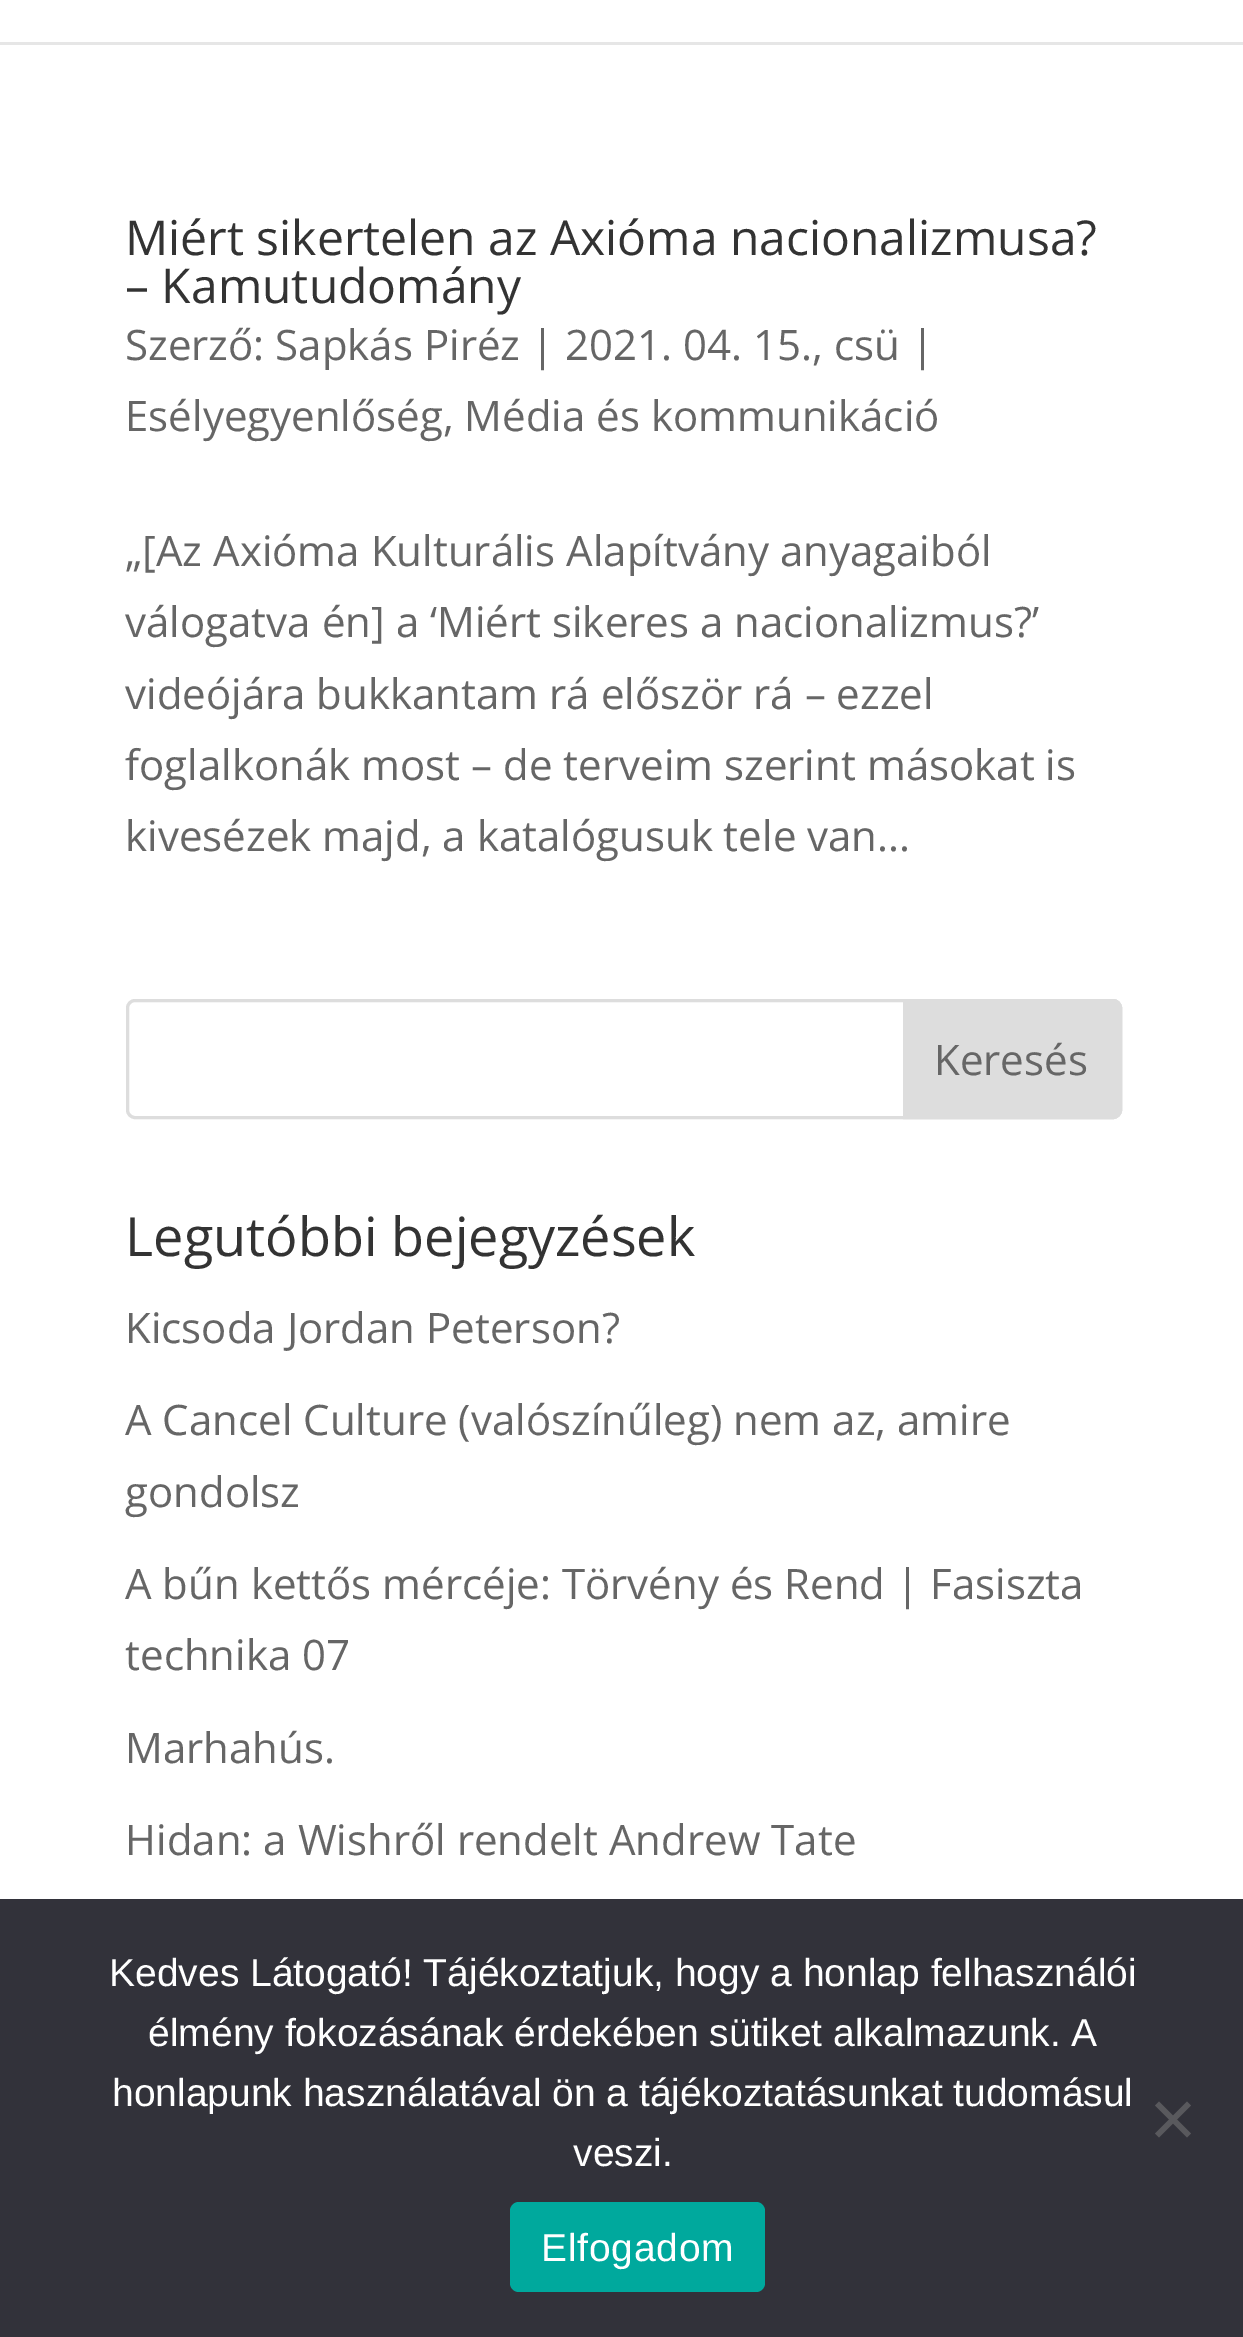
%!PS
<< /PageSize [1243 2337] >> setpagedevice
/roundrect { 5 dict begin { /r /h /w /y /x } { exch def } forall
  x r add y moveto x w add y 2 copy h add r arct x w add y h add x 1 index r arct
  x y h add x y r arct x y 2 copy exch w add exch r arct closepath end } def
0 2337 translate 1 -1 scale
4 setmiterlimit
1 setgray
0 0 1243 2337 rectfill
0.902 setgray
0 42 1243 3 rectfill
/OpenSans-Regular [48 0 0 -48 0 0] selectfont
0.2 setgray
125 255 moveto (Miért sikertelen az Axióma nacionalizmusa?) show
125 303 moveto (– Kamutudomány) show
/OpenSans-Regular [42 0 0 -42 0 0] selectfont
0.4 setgray
125 360 moveto (Szerző: Sapkás Piréz | 2021. 04. 15., csü |) show
125 431 moveto (Esélyegyenlőség, Média és kommunikáció) show
125 566 moveto („[Az Axióma Kulturális Alapítvány anyagaiból) show
125 637 moveto (válogatva én] a ‘Miért sikeres a nacionalizmus?’) show
125 709 moveto (videójára bukkantam rá először rá – ezzel) show
125 780 moveto (foglalkonák most – de terveim szerint másokat is) show
125 851 moveto (kivesézek majd, a katalógusuk tele van...) show
0.867 setgray
3 setlinewidth
127.5 1000.5 993 117 7.5 roundrect stroke
newpath 904.5 1000.5 moveto 1113 1000.5 lineto 1117 1000.5 1120.5 1004 1120.5 1008 curveto 1120.5 1110 lineto 1120.5 1114 1117 1117.5 1113 1117.5 curveto 904.5 1117.5 lineto closepath gsave fill grestore
stroke
0.4 setgray
934 1075 moveto (Keresés) show
/OpenSans-Regular [54 0 0 -54 0 0] selectfont
0.2 setgray
125 1256 moveto (Legutóbbi bejegyzések) show
/OpenSans-Regular [42 0 0 -42 0 0] selectfont
0.4 setgray
125 1343 moveto (Kicsoda Jordan Peterson?) show
125 1435 moveto (A Cancel Culture \(valószínűleg\) nem az, amire) show
125 1507 moveto (gondolsz) show
125 1599 moveto (A bűn kettős mércéje: Törvény és Rend | Fasiszta) show
125 1670 moveto (technika 07) show
125 1763 moveto (Marhahús.) show
125 1855 moveto (Hidan: a Wishről rendelt Andrew Tate) show
0.196 0.196 0.227 setrgbcolor
0 1899 1243 438 rectfill
/LiberationSans-Regular [39 0 0 -39 0 0] selectfont
1 setgray
109 1986 moveto (Kedves Látogató! Tájékoztatjuk, hogy a honlap felhasználói) show
148 2046 moveto (élmény fokozásának érdekében sütiket alkalmazunk. A) show
112 2106 moveto (honlapunk használatával ön a tájékoztatásunkat tudomásul) show
573 2166 moveto (veszi.) show
0.349 0.349 0.365 setrgbcolor
newpath 1187 2101.5 moveto 1191 2105.5 lineto 1159 2137.5 lineto 1155 2133.5 lineto closepath fill
newpath 1155 2105.5 moveto 1159 2101.5 lineto 1191 2133.5 lineto 1187 2137.5 lineto closepath fill
0 0.663 0.616 setrgbcolor
510 2202 255 90 9 roundrect fill
1 setgray
541 2261 moveto 0.75 0 (Elfogadom) ashow
showpage
